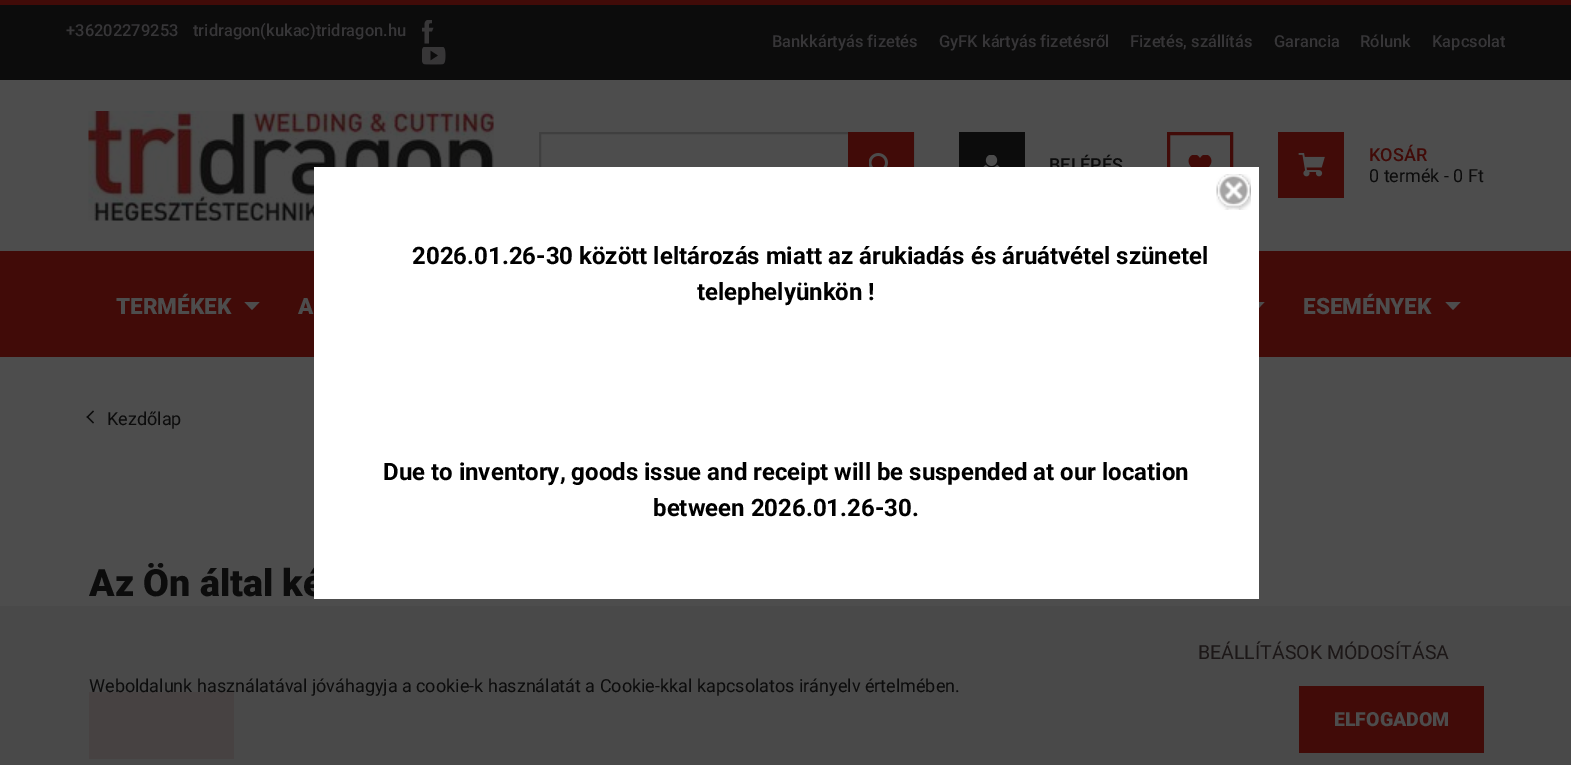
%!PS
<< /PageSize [1571 765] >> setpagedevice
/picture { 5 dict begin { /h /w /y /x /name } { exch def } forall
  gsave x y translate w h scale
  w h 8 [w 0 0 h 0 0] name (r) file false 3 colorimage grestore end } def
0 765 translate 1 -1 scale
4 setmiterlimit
0.302 setgray
0 0 1571 765 rectfill
0.286 setgray
0 606 1571 159 rectfill
0.255 0.043 0.031 setrgbcolor
0 0 1571 5 rectfill
0.047 setgray
0 5 1571 75 rectfill
/Roboto-Medium [16.5 0 0 -16.5 0 0] selectfont
0.216 0.212 0.22 setrgbcolor
66 36 moveto (+36202279253) show
193 36 moveto (tridragon\(kukac\)tridragon.hu) show
(img1.rgb) 422 20 12 24 picture
(img2.rgb) 422 47 24 18 picture
772 47 moveto (Bankkártyás fizetés) show
939 47 moveto (GyFK kártyás fizetésről) show
1130 47 moveto (Fizetés, szállítás) show
1274 47 moveto (Garancia) show
1360 47 moveto (Rólunk) show
1432 47 moveto (Kapcsolat) show
(img3.rgb) 88 111 406 110 picture
0.247 setgray
2 setlinewidth
540 133 373 64 rectstroke
0.255 0.043 0.031 setrgbcolor
848 132 66 35 rectfill
(img4.rgb) 869 153 19 14 picture
0.047 setgray
959 132 66 35 rectfill
(img5.rgb) 983 155 17 12 picture
/Roboto-Medium [18 0 0 -18 0 0] selectfont
1049 171 moveto (BELÉPÉS) show
0.255 0.043 0.031 setrgbcolor
3 setlinewidth
1168.5 133.5 63 63 rectstroke
(img6.rgb) 1188 155 24 12 picture
1278 132 66 66 rectfill
(img7.rgb) 1298 153 27 24 picture
1369 161 moveto (KOSÁR) show
/Roboto-Regular [18 0 0 -18 0 0] selectfont
0.047 setgray
1369 182 moveto (0 termék - 0 Ft) show
0.255 0.043 0.031 setrgbcolor
0 251 1571 106 rectfill
/Roboto-Black [22.5 0 0 -22.5 0 0] selectfont
0.302 setgray
116 314 moveto (TERMÉKEK) show
newpath 244.5 302 moveto 259.5 302 lineto 252 310 lineto closepath fill
298 314 moveto (A) show
newpath 1249.5 302 moveto 1264.5 302 lineto 1257 310 lineto closepath fill
1303 314 moveto (ESEMÉNYEK) show
newpath 1445.5 302 moveto 1460.5 302 lineto 1453 310 lineto closepath fill
0.047 setgray
newpath 94 422.5 moveto 93 423.5 lineto 86.5 417 lineto 87.5 416 lineto closepath fill
newpath 94 411.5 moveto 87.5 418 lineto 86.5 417 lineto 93 410.5 lineto closepath fill
/Roboto-Regular [18 0 0 -18 0 0] selectfont
107 425 moveto (Kezdőlap) show
/Roboto-Black [37.5 0 0 -37.5 0 0] selectfont
89 596 moveto (Az Ön által ké) show
0.278 0.259 0.259 setrgbcolor
89 692 145 67 rectfill
1 setgray
314 167 945 432 rectfill
(img8.rgb) 1216 174 35 36 picture
/Roboto-Bold [24 0 0 -24 0 0] selectfont
0 setgray
412 264 moveto (2026.01.26-30 között leltározás miatt az árukiadás és áruátvétel szünetel) show
697 300 moveto (telephelyünkön !) show
383 480 moveto (Due to inventory, goods issue and receipt will be suspended at our location) show
653 516 moveto (between 2026.01.26-30.) show
/Roboto-Regular [18 0 0 -18 0 0] selectfont
0.047 setgray
89 692 moveto (Weboldalunk használatával jóváhagyja a cookie-k használatát a Cookie-kkal kapcsolatos irányelv értelmében.) show
/Roboto-Regular [19.5 0 0 -19.5 0 0] selectfont
0.11 0.09 0.09 setrgbcolor
1198 659 moveto (BEÁLLÍTÁSOK MÓDOSÍTÁSA) show
0.255 0.043 0.031 setrgbcolor
1299 686 185 67 rectfill
/Roboto-Black [19.5 0 0 -19.5 0 0] selectfont
0.302 setgray
1334 726 moveto (ELFOGADOM) show
showpage
